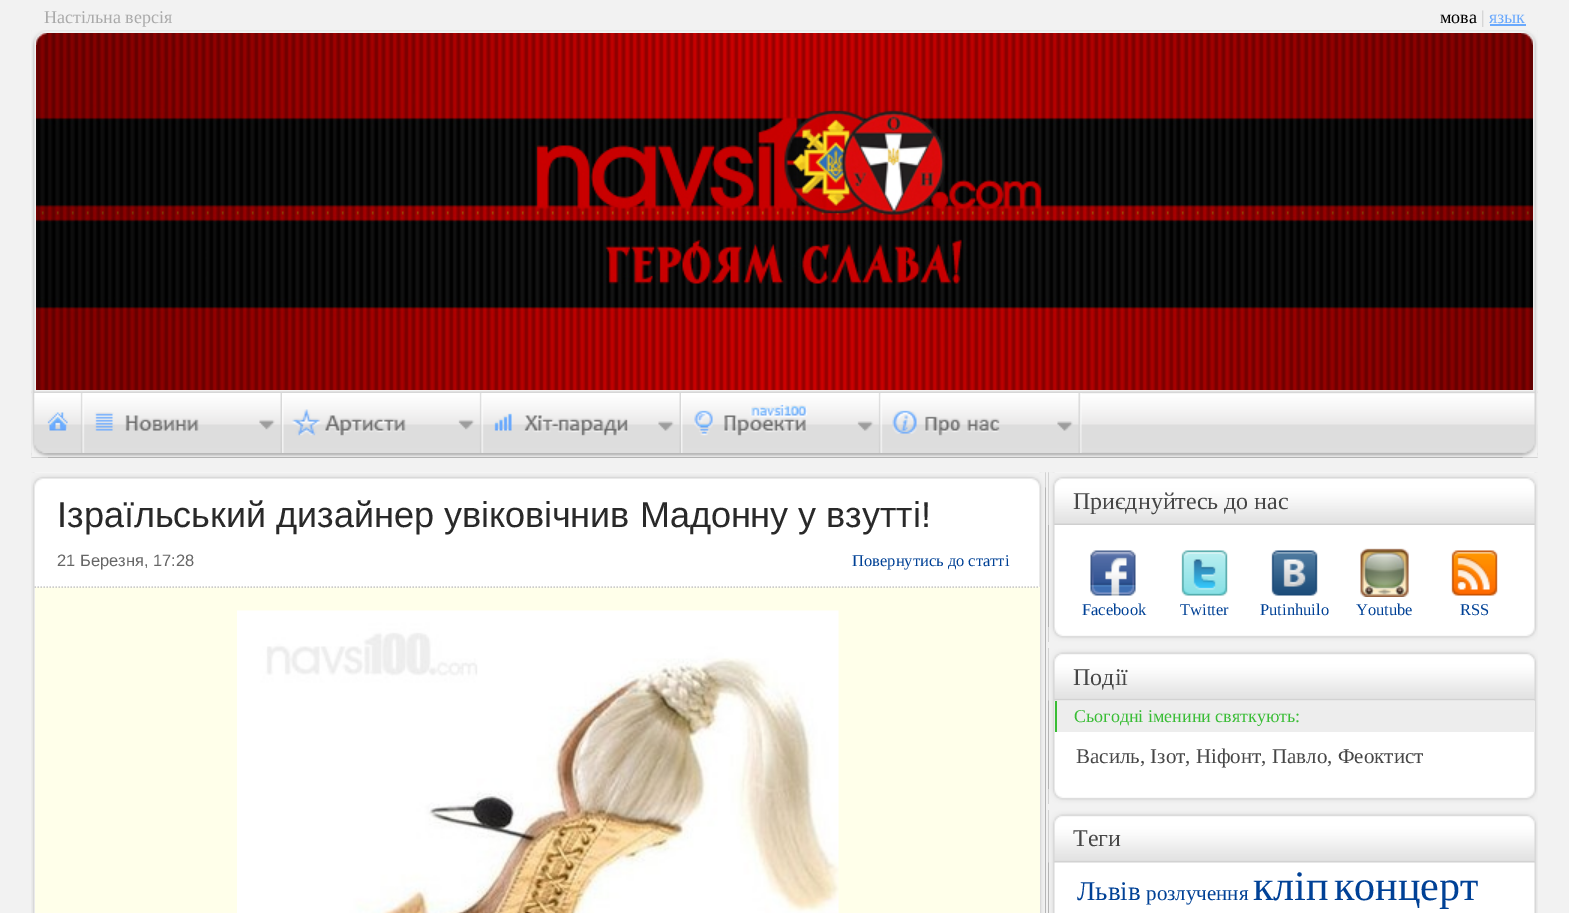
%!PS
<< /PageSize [1569 913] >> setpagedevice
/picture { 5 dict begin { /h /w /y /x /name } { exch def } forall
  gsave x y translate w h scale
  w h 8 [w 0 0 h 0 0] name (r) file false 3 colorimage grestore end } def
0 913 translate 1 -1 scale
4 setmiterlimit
0.949 setgray
0 0 1569 913 rectfill
(img1.rgb) 31 30 1507 428 picture
/LiberationSerif-Regular [18 0 0 -18 0 0] selectfont
0.667 setgray
44 23 moveto (Настільна версія) show
0 setgray
1440 23 moveto (мова) show
0.8 setgray
1481 23 moveto (|) show
0.416 0.663 0.992 setrgbcolor
1489 23 moveto (язык) show
1490 24 36 2 rectfill
(img2.rgb) 31 30 17 428 picture
(img3.rgb) 1522 30 16 428 picture
(img4.rgb) 36 33 1497 357 picture
(img5.rgb) 36 33 11 12 picture
(img6.rgb) 1521 33 12 12 picture
(img7.rgb) 34 393 49 60 picture
(img8.rgb) 82 393 200 60 picture
(img9.rgb) 282 393 200 60 picture
(img10.rgb) 481 393 200 60 picture
(img11.rgb) 681 393 200 60 picture
(img12.rgb) 880 393 202 60 picture
(img13.rgb) 31 472 1015 441 picture
(img14.rgb) 31 472 1015 16 picture
/LiberationSans-Regular [36 0 0 -36 0 0] selectfont
0.161 setgray
57 527 moveto (Ізраїльський дизайнер увіковічнив Мадонну у взутті!) show
/LiberationSans-Regular [16.5 0 0 -16.5 0 0] selectfont
0.4 setgray
57 566 moveto (21 Березня, 17:28) show
/LiberationSerif-Regular [16.5 0 0 -16.5 0 0] selectfont
0 0.255 0.588 setrgbcolor
852 566 moveto (Повернутись до статті) show
1 1 0.918 setrgbcolor
35 587 1005 326 rectfill
0.8 setgray
1.5 setlinewidth
[1.5 1.5] 0 setdash
newpath 34.5 587 moveto 1039.5 587 lineto stroke
(img15.rgb) 237 610 602 303 picture
(img16.rgb) 1048 472 490 170 picture
(img17.rgb) 1048 472 490 53 picture
/LiberationSerif-Regular [24 0 0 -24 0 0] selectfont
0.275 setgray
1073 509 moveto (Приєднуйтесь до нас) show
(img18.rgb) 1090 550 46 46 picture
/LiberationSerif-Regular [16.5 0 0 -16.5 0 0] selectfont
0 0.255 0.588 setrgbcolor
1082 615 moveto (Facebook) show
(img19.rgb) 1181 550 47 46 picture
1180 615 moveto (Twitter) show
(img20.rgb) 1271 550 47 46 picture
1260 615 moveto (Putinhuilo) show
(img21.rgb) 1360 548 49 49 picture
1356 615 moveto (Youtube) show
(img22.rgb) 1451 550 47 46 picture
1460 615 moveto (RSS) show
(img23.rgb) 1048 627 490 15 picture
(img24.rgb) 1048 648 490 156 picture
(img25.rgb) 1048 648 490 53 picture
/LiberationSerif-Regular [24 0 0 -24 0 0] selectfont
0.275 setgray
1073 685 moveto (Події) show
0.929 setgray
1057 701 478 31 rectfill
0.224 0.741 0.208 setrgbcolor
1055 701 2 31 rectfill
/LiberationSerif-Regular [18 0 0 -18 0 0] selectfont
1074 722 moveto (Сьогодні іменини святкують:) show
/LiberationSerif-Regular [21 0 0 -21 0 0] selectfont
0.275 setgray
1076 763 moveto (Василь, Ізот, Ніфонт, Павло, Феоктист) show
(img23.rgb) 1048 789 490 15 picture
(img26.rgb) 1048 810 490 103 picture
(img25.rgb) 1048 810 490 53 picture
/LiberationSerif-Regular [24 0 0 -24 0 0] selectfont
1073 846 moveto (Теги) show
/LiberationSerif-Regular [27 0 0 -27 0 0] selectfont
0 0.255 0.588 setrgbcolor
1077 900 moveto (Львів) show
/LiberationSerif-Regular [21 0 0 -21 0 0] selectfont
1146 900 moveto (розлучення) show
/LiberationSerif-Regular [42 0 0 -42 0 0] selectfont
1253 900 moveto (кліп) show
1334 900 moveto (концерт) show
showpage
